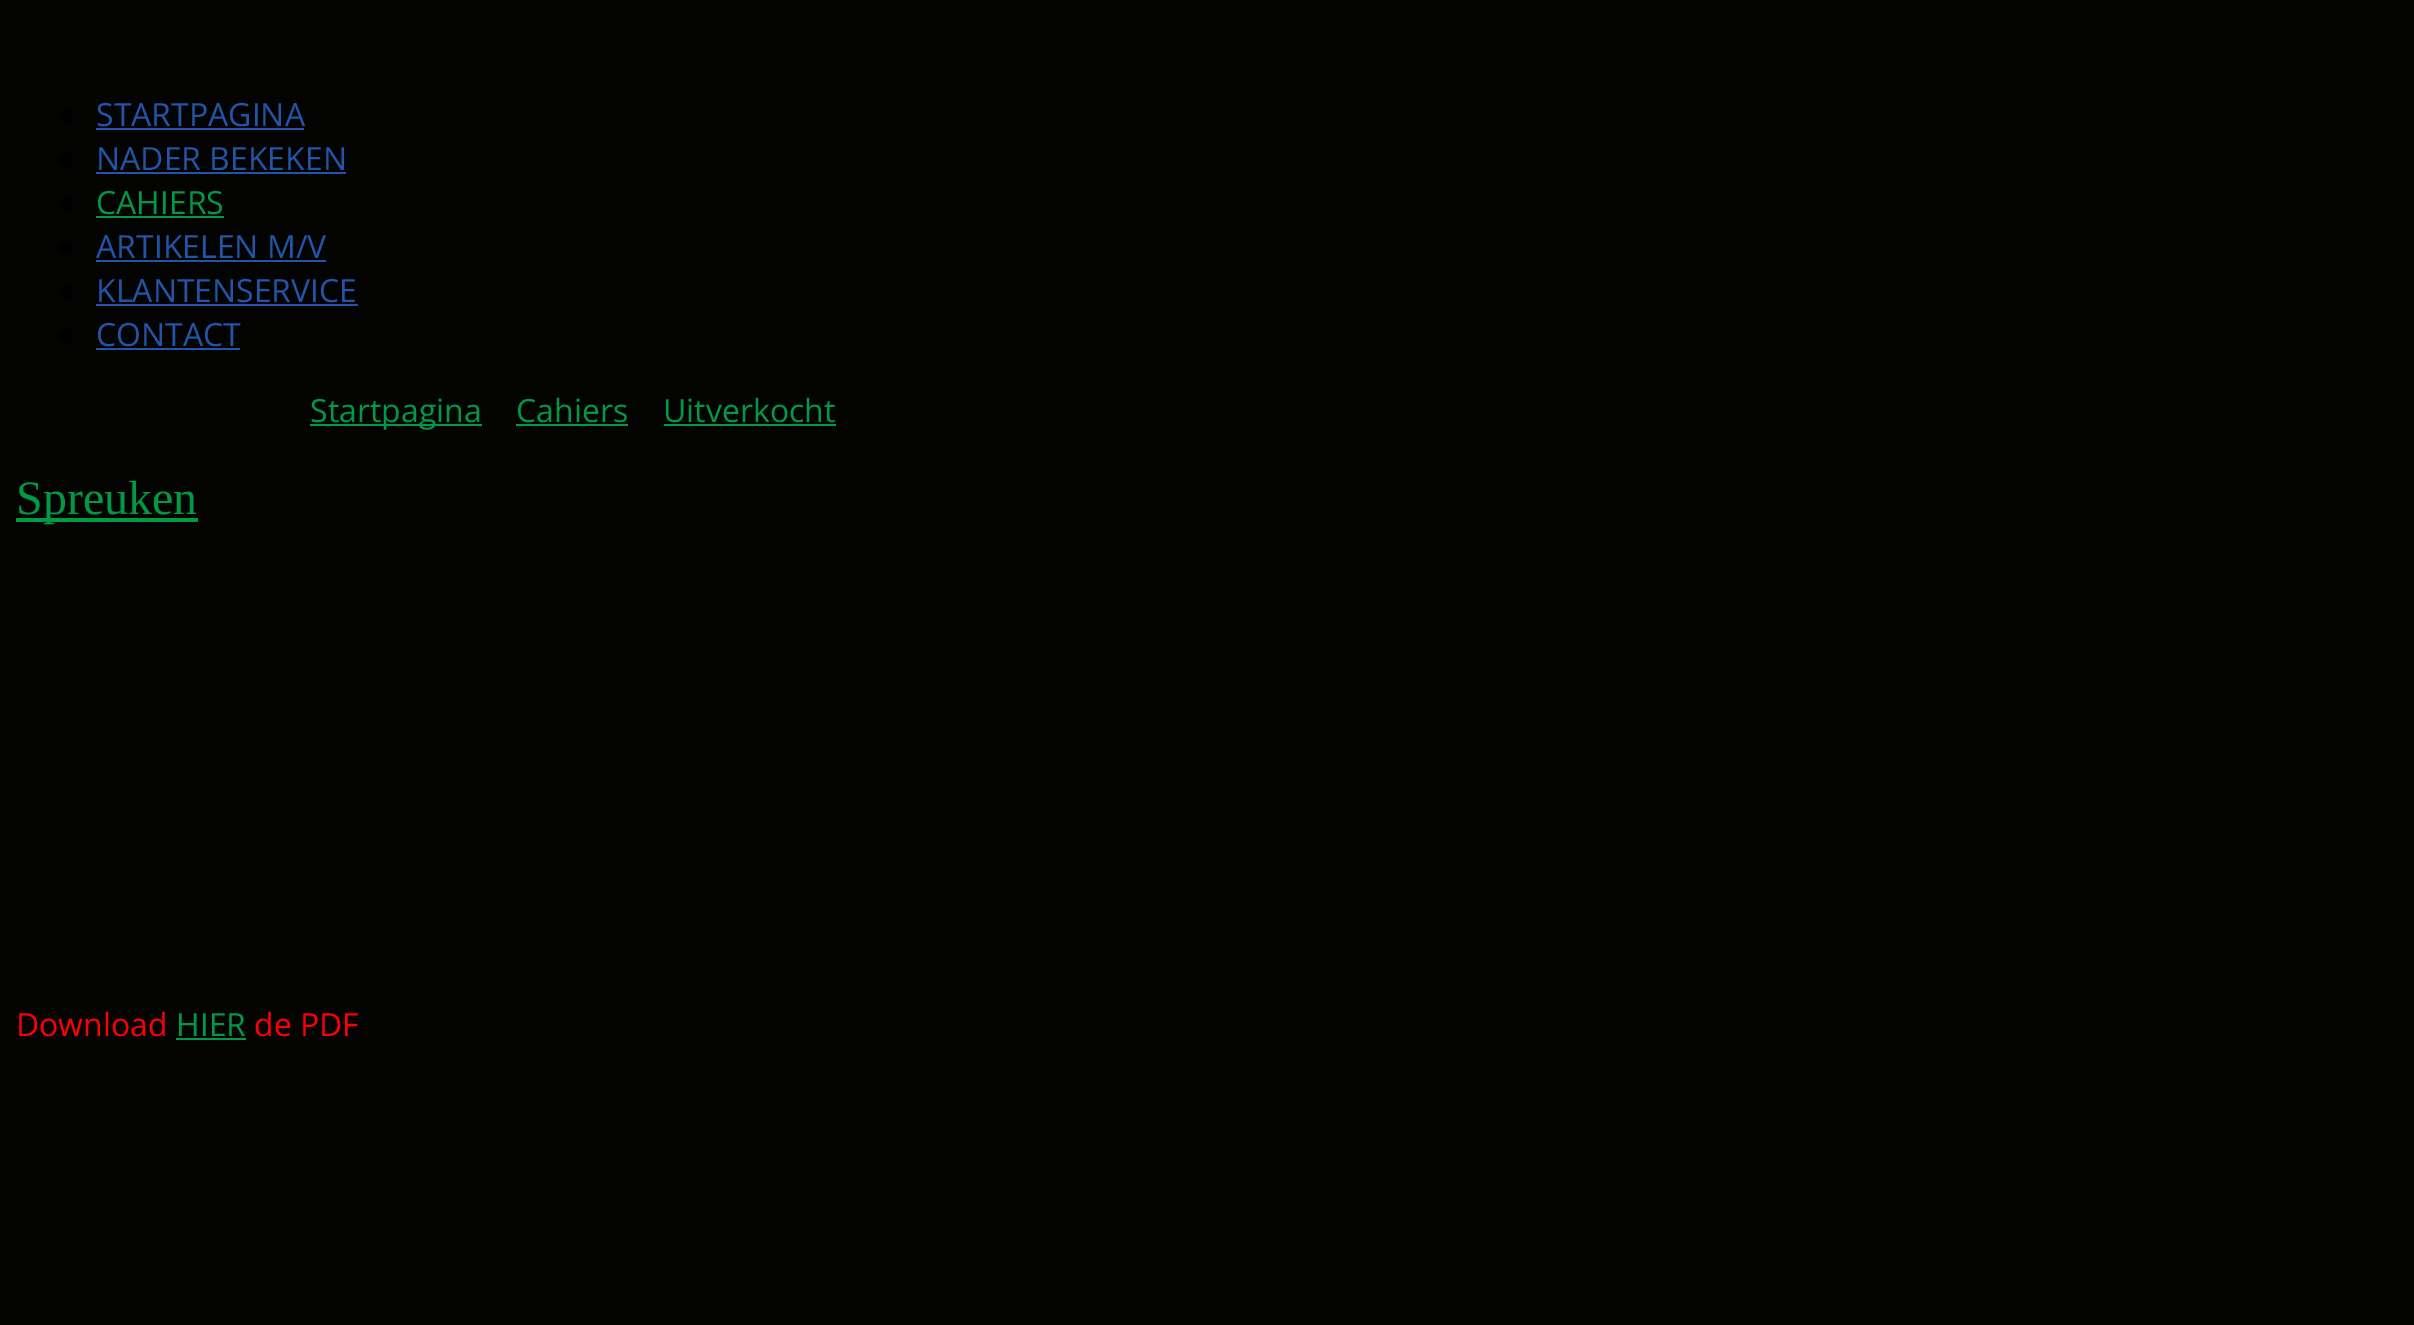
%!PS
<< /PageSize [2414 1325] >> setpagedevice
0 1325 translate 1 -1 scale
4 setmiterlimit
0.012 0.012 0.008 setrgbcolor
0 0 2414 1325 rectfill
0 setgray
newpath 66 116 6 0 360 arc closepath fill
/OpenSans-Regular [32 0 0 -32 0 0] selectfont
0.133 0.333 0.667 setrgbcolor
96 126 moveto (STARTPAGINA) show
96 128 208 2 rectfill
0 setgray
newpath 66 160 6 0 360 arc closepath fill
0.133 0.333 0.667 setrgbcolor
96 170 moveto (NADER BEKEKEN) show
96 172 250 2 rectfill
0 setgray
newpath 66 204 6 0 360 arc closepath fill
0 0.6 0.267 setrgbcolor
96 214 moveto (CAHIERS) show
96 216 128 2 rectfill
0 setgray
newpath 66 248 6 0 360 arc closepath fill
0.133 0.333 0.667 setrgbcolor
96 258 moveto (ARTIKELEN M/V) show
96 260 230 2 rectfill
0 setgray
newpath 66 292 6 0 360 arc closepath fill
0.133 0.333 0.667 setrgbcolor
96 302 moveto (KLANTENSERVICE) show
96 304 262 2 rectfill
0 setgray
newpath 66 336 6 0 360 arc closepath fill
0.133 0.333 0.667 setrgbcolor
96 346 moveto (CONTACT) show
96 348 144 2 rectfill
0 0.6 0.267 setrgbcolor
310 424 172 2 rectfill
310 422 moveto (Startpagina) show
516 422 moveto (Cahiers) show
516 424 112 2 rectfill
663 422 moveto (Uitverkocht) show
664 424 172 2 rectfill
16 518 182 4 rectfill
/LiberationSerif-Regular [48 0 0 -48 0 0] selectfont
16 514 moveto (Spreuken) show
/OpenSans-Regular [32 0 0 -32 0 0] selectfont
1 0 0 setrgbcolor
16 1036 moveto (Download) show
0 0.6 0.267 setrgbcolor
176 1036 moveto (HIER) show
176 1038 70 2 rectfill
1 0 0 setrgbcolor
254 1036 moveto (de PDF) show
showpage
